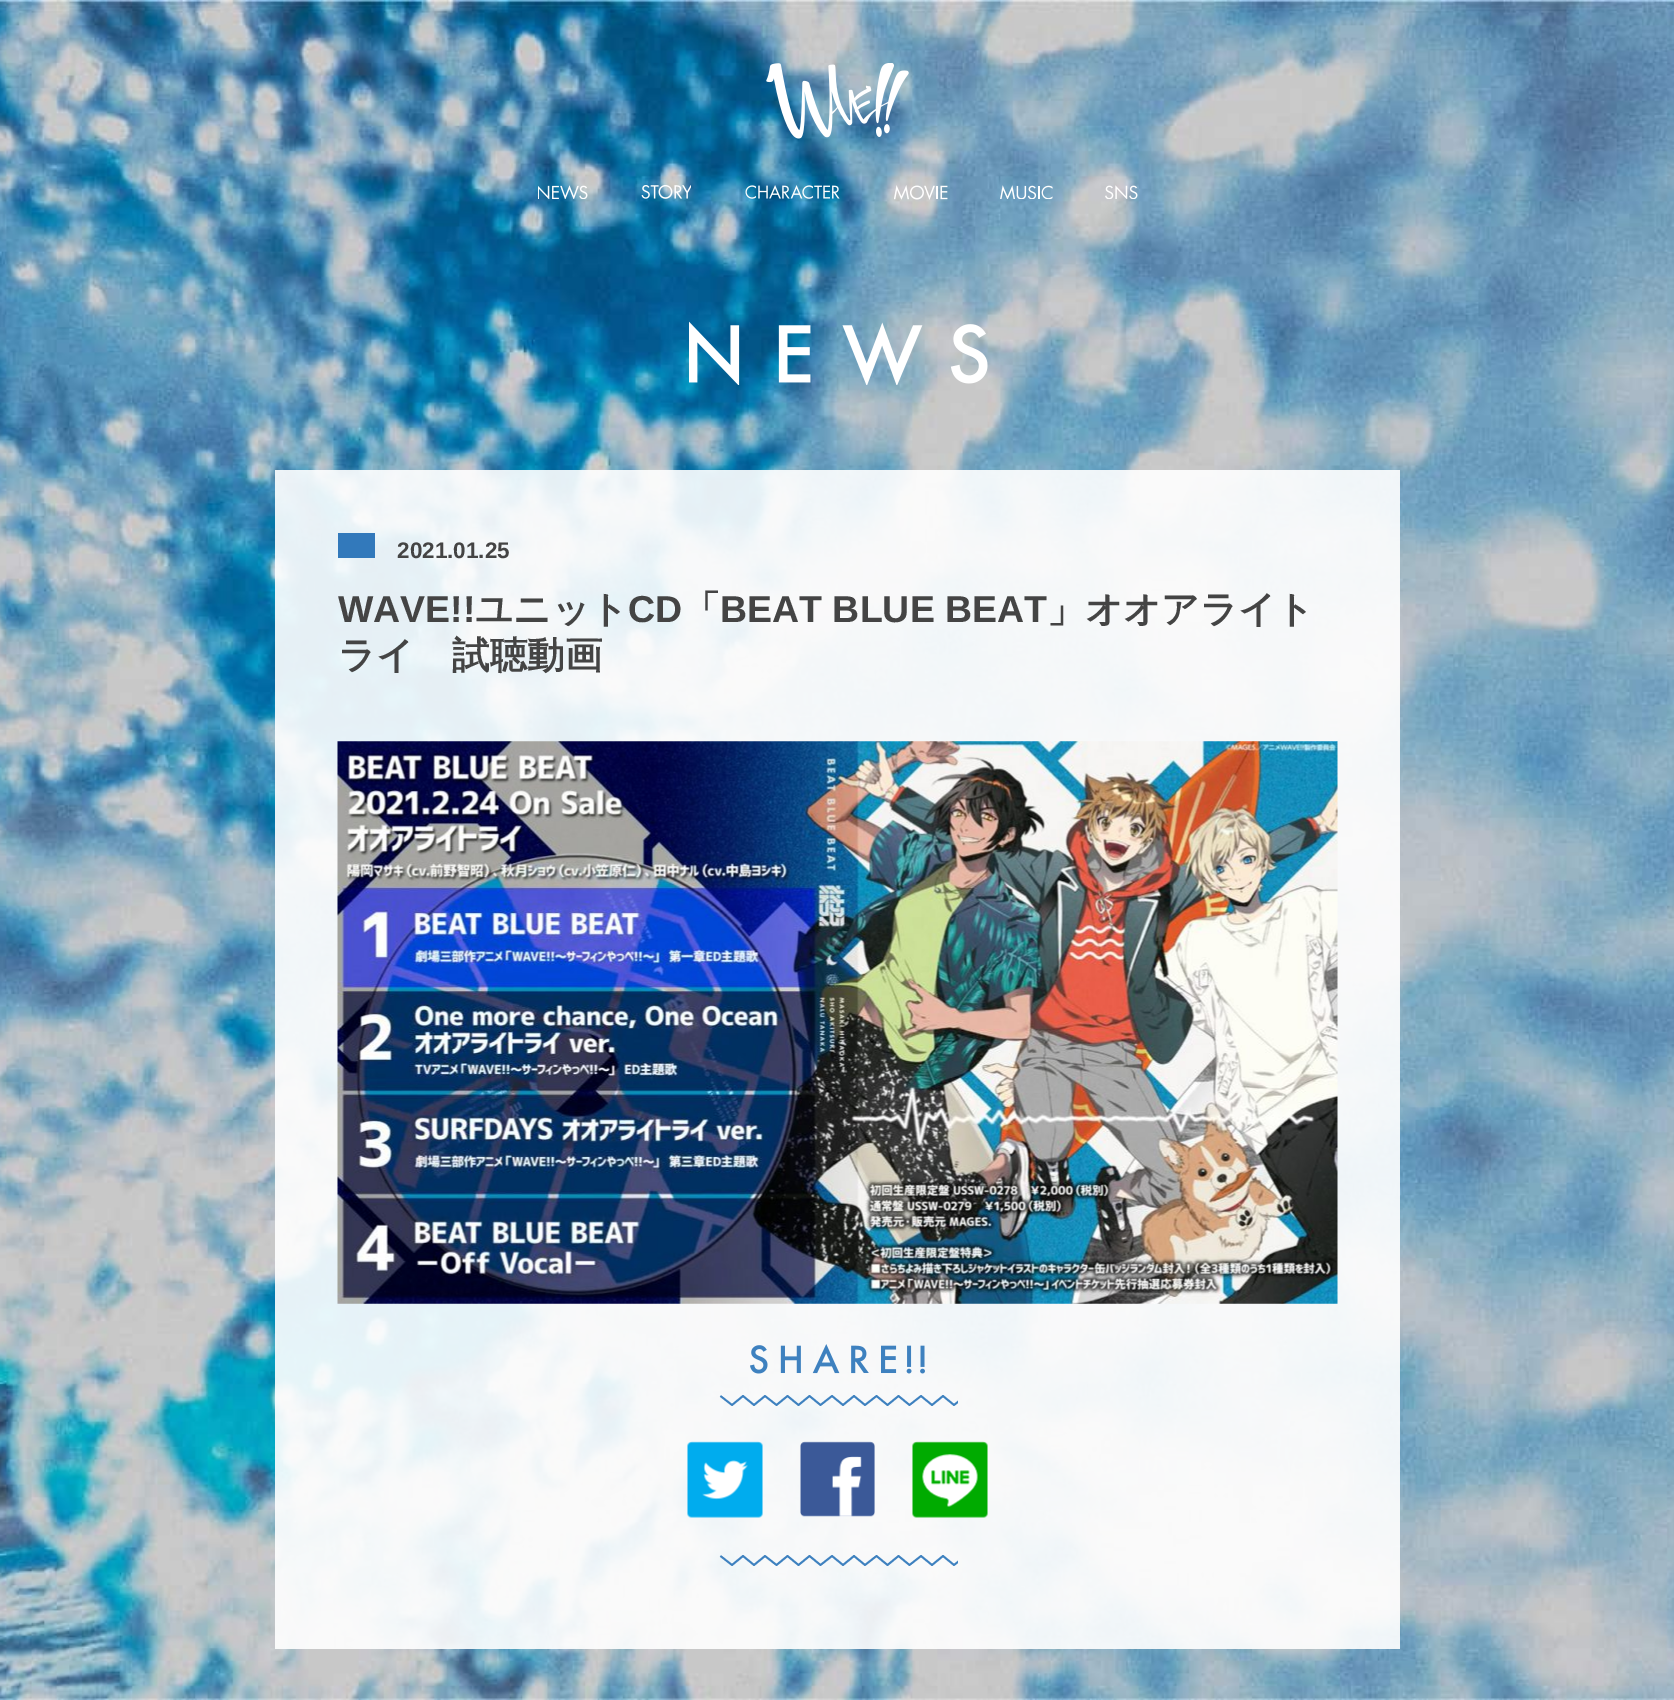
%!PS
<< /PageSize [1674 1700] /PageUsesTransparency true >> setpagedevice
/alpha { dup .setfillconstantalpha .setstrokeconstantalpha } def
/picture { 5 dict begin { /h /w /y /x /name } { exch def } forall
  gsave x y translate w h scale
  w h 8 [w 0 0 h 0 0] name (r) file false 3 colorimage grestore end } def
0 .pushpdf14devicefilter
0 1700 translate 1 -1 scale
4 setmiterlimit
1 setgray
0 0 1674 1700 rectfill
(img1.rgb) 0 0 1674 1700 picture
(img2.rgb) 766 63 143 76 picture
(img3.rgb) 538 185 50 14 picture
(img4.rgb) 641 185 50 14 picture
(img5.rgb) 745 185 95 14 picture
(img6.rgb) 894 185 54 15 picture
(img7.rgb) 1000 185 53 14 picture
(img8.rgb) 1105 185 33 14 picture
(img9.rgb) 689 321 299 64 picture
0.9 alpha
275 470 1125 1179 rectfill
1 alpha
0.196 0.475 0.733 setrgbcolor
338 533 37 25 rectfill
/LiberationSans-Bold [22.5 0 0 -22.5 0 0] selectfont
0.267 setgray
397 558 moveto (2021.01.25) show
/LiberationSans-Bold [37.5 0 0 -37.5 0 0] selectfont
338 622 moveto (WAVE!!) show
/WenQuanYiZenHei-Bold [37.5 0 0 -37.5 0 0] selectfont
475 622 moveto (ユニット) show
/LiberationSans-Bold [37.5 0 0 -37.5 0 0] selectfont
628 622 moveto (CD) show
/WenQuanYiZenHei-Bold [37.5 0 0 -37.5 0 0] selectfont
683 622 moveto (「) show
/LiberationSans-Bold [37.5 0 0 -37.5 0 0] selectfont
720 622 moveto (BEAT BLUE BEAT) show
/WenQuanYiZenHei-Bold [37.5 0 0 -37.5 0 0] selectfont
1047 622 moveto (」オオアライト) show
338 668 moveto (ライ　試聴動画) show
(img10.rgb) 337 741 1001 563 picture
(img11.rgb) 750 1344 175 30 picture
gsave
719 1395 239 11 rectclip
0.243 0.506 0.749 setrgbcolor
1.8 setlinewidth
newpath 720.5 1396 moveto 732 1405 lineto 743 1396 lineto 754 1405 lineto 765 1396 lineto 776.5 1405 lineto 787.5 1396 lineto 798.5 1405 lineto 809.5 1396 lineto 820.5 1405 lineto 832 1396 lineto 843 1405 lineto 854 1396 lineto 865 1405 lineto 876.5 1396 lineto 887.5 1405 lineto 898.5 1396 lineto 909.5 1405 lineto 921 1396 lineto 932 1405 lineto 943 1396 lineto 954 1405 lineto 965.5 1396 lineto 976.5 1405 lineto stroke
grestore
(img12.rgb) 687 1441 76 77 picture
(img13.rgb) 800 1441 75 76 picture
(img14.rgb) 912 1441 76 77 picture
gsave
719 1555 239 11 rectclip
0.243 0.506 0.749 setrgbcolor
1.8 setlinewidth
newpath 720.5 1556 moveto 732 1565 lineto 743 1556 lineto 754 1565 lineto 765 1556 lineto 776.5 1565 lineto 787.5 1556 lineto 798.5 1565 lineto 809.5 1556 lineto 820.5 1565 lineto 832 1556 lineto 843 1565 lineto 854 1556 lineto 865 1565 lineto 876.5 1556 lineto 887.5 1565 lineto 898.5 1556 lineto 909.5 1565 lineto 921 1556 lineto 932 1565 lineto 943 1556 lineto 954 1565 lineto 965.5 1556 lineto 976.5 1565 lineto stroke
grestore
.poppdf14devicefilter showpage
